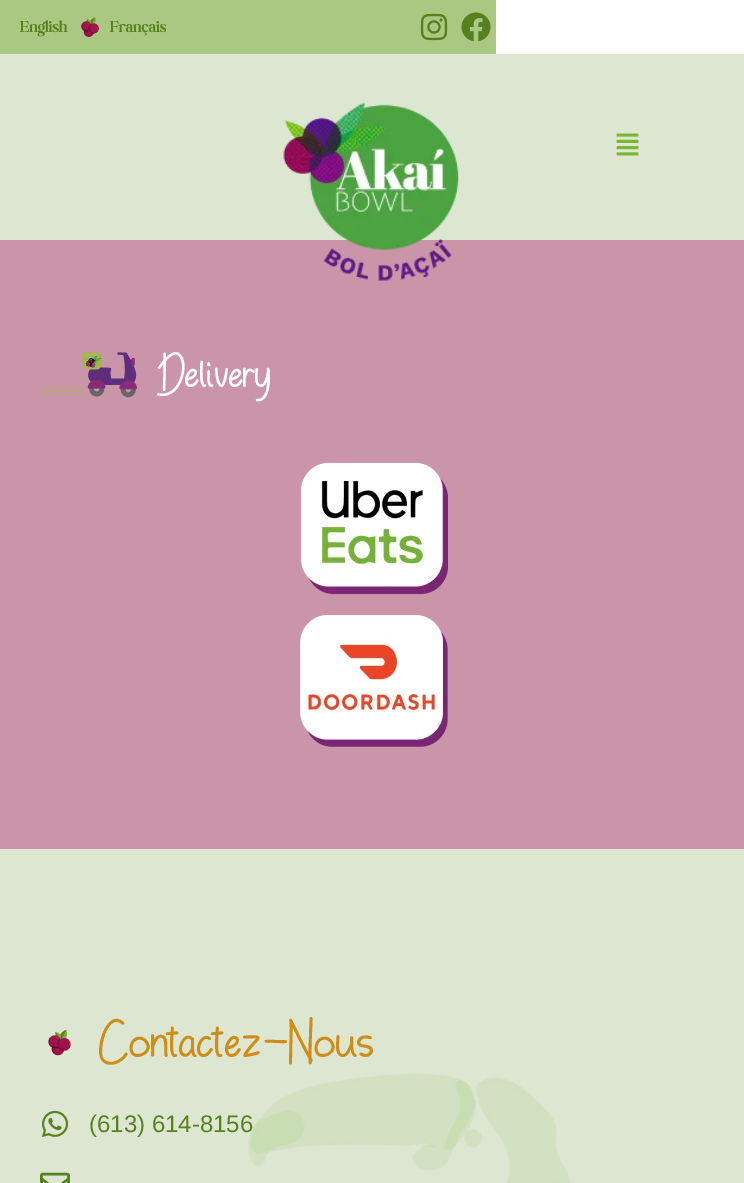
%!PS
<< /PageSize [744 1183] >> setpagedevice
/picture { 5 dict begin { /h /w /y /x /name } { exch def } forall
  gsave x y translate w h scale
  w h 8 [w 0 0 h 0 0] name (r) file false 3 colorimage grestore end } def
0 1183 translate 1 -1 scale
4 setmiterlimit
1 setgray
0 0 744 1183 rectfill
0.667 0.784 0.51 setrgbcolor
0 0 496 54 rectfill
(img1.rgb) 20 20 48 17 picture
(img2.rgb) 81 17 18 20 picture
(img3.rgb) 110 21 56 15 picture
(img4.rgb) 420 13 28 28 picture
(img5.rgb) 461 12 30 30 picture
0.867 0.902 0.82 setrgbcolor
0 54 744 186 rectfill
0.796 0.584 0.663 setrgbcolor
0 240 744 609 rectfill
(img6.rgb) 283 102 176 179 picture
(img7.rgb) 616 133 23 23 picture
(img8.rgb) 40 352 97 46 picture
/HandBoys-Regular [38 0 0 -38 0 0] selectfont
1 setgray
157 387 moveto (Delivery) show
(img9.rgb) 300 462 148 133 picture
(img10.rgb) 300 615 148 132 picture
0.867 0.902 0.82 setrgbcolor
0 849 744 334 rectfill
(img11.rgb) 248 1073 323 110 picture
(img12.rgb) 48 1029 23 27 picture
/HandBoys-Regular [44 0 0 -44 0 0] selectfont
0.808 0.553 0.082 setrgbcolor
99 1057 moveto (Contactez-Nous) show
(img13.rgb) 42 1110 27 27 picture
/LiberationSans-Regular [24 0 0 -24 0 0] selectfont
0.341 0.502 0.122 setrgbcolor
89 1132 moveto (\(613\) 614-8156) show
(img14.rgb) 40 1172 30 11 picture
showpage
